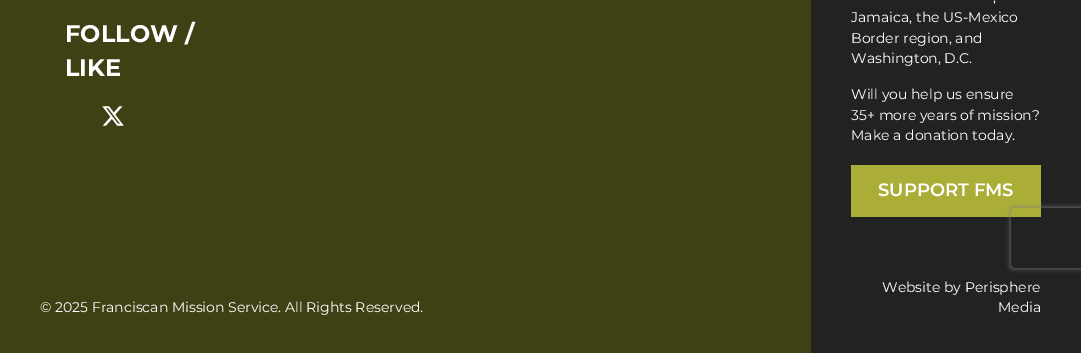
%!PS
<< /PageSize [1081 353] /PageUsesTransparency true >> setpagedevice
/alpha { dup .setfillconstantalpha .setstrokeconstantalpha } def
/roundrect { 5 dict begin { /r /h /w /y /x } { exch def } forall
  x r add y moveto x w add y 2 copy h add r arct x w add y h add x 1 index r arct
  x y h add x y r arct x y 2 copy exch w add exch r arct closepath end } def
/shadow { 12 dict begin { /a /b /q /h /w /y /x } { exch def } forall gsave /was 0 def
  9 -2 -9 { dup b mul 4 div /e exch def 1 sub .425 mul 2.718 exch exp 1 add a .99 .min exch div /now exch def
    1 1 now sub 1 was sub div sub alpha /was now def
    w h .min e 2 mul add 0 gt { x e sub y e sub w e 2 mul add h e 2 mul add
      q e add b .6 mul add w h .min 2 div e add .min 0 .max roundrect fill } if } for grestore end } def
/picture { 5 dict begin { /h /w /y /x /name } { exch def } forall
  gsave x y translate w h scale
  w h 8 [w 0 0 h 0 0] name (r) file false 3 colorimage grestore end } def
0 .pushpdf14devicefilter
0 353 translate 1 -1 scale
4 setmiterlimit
0.247 0.255 0.078 setrgbcolor
0 0 1081 353 rectfill
/Montserrat-Bold [24 0 0 -24 0 0] selectfont
1 setgray
65 42 moveto (FOLLOW /) show
65 76 moveto (LIKE) show
(img1.rgb) 102 106 22 20 picture
0.133 setgray
811 0 270 353 rectfill
/Montserrat-Regular [14 0 0 -14 0 0] selectfont
1 setgray
993 2 moveto (,) show
851 22 moveto (Jamaica, the US-Mexico) show
851 43 moveto (Border region, and) show
851 63 moveto (Washington, D.C.) show
851 99 moveto (Will you help us ensure) show
851 120 moveto (35+ more years of mission?) show
851 140 moveto (Make a donation today.) show
0.667 0.682 0.216 setrgbcolor
851 165 190 52 rectfill
/Montserrat-SemiBold [18 0 0 -18 0 0] selectfont
1 setgray
878 196 moveto (SUPPORT FMS) show
/Montserrat-Regular [14 0 0 -14 0 0] selectfont
40 312 moveto (© 2025 Franciscan Mission Service. All Rights Reserved.) show
882 292 moveto (Website by Perisphere) show
998 312 moveto (Media) show
gsave
newpath 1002 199 moveto 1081 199 lineto 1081 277 lineto 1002 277 lineto closepath 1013 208 moveto 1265 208 lineto 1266 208 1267 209 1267 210 curveto 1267 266 lineto 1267 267 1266 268 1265 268 curveto 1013 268 lineto 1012 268 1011 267 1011 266 curveto 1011 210 lineto 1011 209 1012 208 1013 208 curveto closepath eoclip newpath
0.502 setgray
1011 208 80 60 2 2.5 1 shadow
grestore
.poppdf14devicefilter showpage
